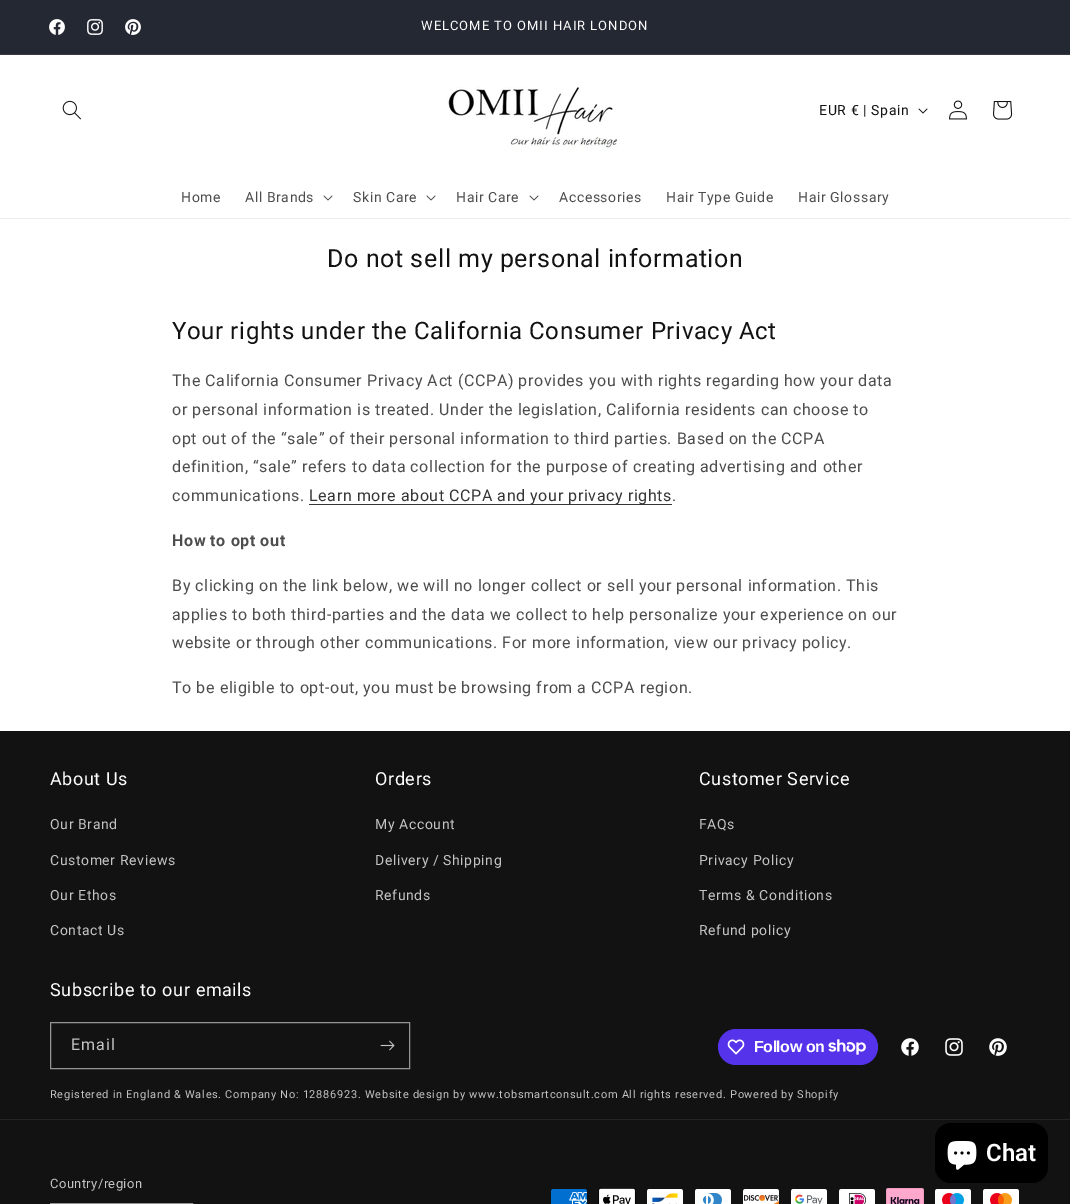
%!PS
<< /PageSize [1070 1204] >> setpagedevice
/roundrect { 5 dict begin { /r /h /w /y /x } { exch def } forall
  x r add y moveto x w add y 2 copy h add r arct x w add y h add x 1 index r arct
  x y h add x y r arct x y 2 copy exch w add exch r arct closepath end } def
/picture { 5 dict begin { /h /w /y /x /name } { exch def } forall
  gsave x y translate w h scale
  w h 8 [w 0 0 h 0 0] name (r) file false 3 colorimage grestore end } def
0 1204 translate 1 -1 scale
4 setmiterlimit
1 setgray
0 0 1070 1204 rectfill
0.141 0.157 0.2 setrgbcolor
0 0 1070 54 rectfill
0.212 0.224 0.263 setrgbcolor
0 54 1070 1 rectfill
(img1.rgb) 49 19 16 16 picture
(img2.rgb) 87 19 16 16 picture
(img3.rgb) 125 19 16 16 picture
/Roboto-Regular [13 0 0 -13 0 0] selectfont
1 setgray
421 30 moveto 1 0 (WELCOME TO OMII HAIR LONDON) ashow
0.925 setgray
0 218 1070 1 rectfill
(img4.rgb) 62 100 19 20 picture
(img5.rgb) 447 86 172 64 picture
/Roboto-Regular [14 0 0 -14 0 0] selectfont
0.071 setgray
819 115 moveto 0.6 0 (EUR € | Spain) ashow
(img6.rgb) 918 108 10 6 picture
(img7.rgb) 949 100 18 20 picture
(img8.rgb) 993 101 20 19 picture
0.302 setgray
181 202 moveto 0.6 0 (Home) ashow
245 202 moveto 0.6 0 (All Brands) ashow
(img9.rgb) 323 195 10 6 picture
353 202 moveto 0.6 0 (Skin Care) ashow
(img9.rgb) 426 195 10 6 picture
456 202 moveto 0.6 0 (Hair Care) ashow
(img9.rgb) 529 195 10 6 picture
559 202 moveto 0.6 0 (Accessories) ashow
666 202 moveto 0.6 0 (Hair Type Guide) ashow
798 202 moveto 0.6 0 (Hair Glossary) ashow
/Roboto-Regular [25 0 0 -25 0 0] selectfont
0.071 setgray
327 267 moveto 0.6 0 (Do not sell my personal information) ashow
/Roboto-Regular [24 0 0 -24 0 0] selectfont
172 339 moveto 0.6 0 (Your rights under the California Consumer Privacy Act) ashow
/Roboto-Regular [16 0 0 -16 0 0] selectfont
0.302 setgray
172 386 moveto 0.6 0 (The California Consumer Privacy Act \(CCPA\) provides you with rights regarding how your data) ashow
172 415 moveto 0.6 0 (or personal information is treated. Under the legislation, California residents can choose to) ashow
172 444 moveto 0.6 0 (opt out of the “sale” of their personal information to third parties. Based on the CCPA) ashow
172 472 moveto 0.6 0 (definition, “sale” refers to data collection for the purpose of creating advertising and other) ashow
172 501 moveto 0.6 0 (communications.) ashow
0.212 setgray
309 504 363 1 rectfill
0.208 setgray
309 501 moveto 0.6 0 (Learn more about CCPA and your privacy rights) ashow
0.302 setgray
672 501 moveto 0.6 0 (.) ashow
/Roboto-Bold [16 0 0 -16 0 0] selectfont
172 546 moveto 0.6 0 (How to opt out) ashow
/Roboto-Regular [16 0 0 -16 0 0] selectfont
172 591 moveto 0.6 0 (By clicking on the link below, we will no longer collect or sell your personal information. This) ashow
172 620 moveto 0.6 0 (applies to both third-parties and the data we collect to help personalize your experience on our) ashow
172 648 moveto 0.6 0 (website or through other communications. For more information, view our privacy policy.) ashow
172 693 moveto 0.6 0 (To be eligible to opt-out, you must be browsing from a CCPA region.) ashow
0.071 setgray
0 731 1070 473 rectfill
/Roboto-Regular [18 0 0 -18 0 0] selectfont
1 setgray
50 785 moveto 0.6 0 (About Us) ashow
/Roboto-Regular [14 0 0 -14 0 0] selectfont
0.769 setgray
50 829 moveto 0.6 0 (Our Brand) ashow
50 865 moveto 0.6 0 (Customer Reviews) ashow
50 900 moveto 0.6 0 (Our Ethos) ashow
50 935 moveto 0.6 0 (Contact Us) ashow
/Roboto-Regular [18 0 0 -18 0 0] selectfont
1 setgray
375 785 moveto 0.6 0 (Orders) ashow
/Roboto-Regular [14 0 0 -14 0 0] selectfont
0.769 setgray
375 829 moveto 0.6 0 (My Account) ashow
375 865 moveto 0.6 0 (Delivery / Shipping) ashow
375 900 moveto 0.6 0 (Refunds) ashow
/Roboto-Regular [18 0 0 -18 0 0] selectfont
1 setgray
699 785 moveto 0.6 0 (Customer Service) ashow
/Roboto-Regular [14 0 0 -14 0 0] selectfont
0.769 setgray
699 829 moveto 0.6 0 (FAQs) ashow
699 865 moveto 0.6 0 (Privacy Policy) ashow
699 900 moveto 0.6 0 (Terms & Conditions) ashow
699 935 moveto 0.6 0 (Refund policy) ashow
/Roboto-Regular [18 0 0 -18 0 0] selectfont
1 setgray
50 996 moveto 0.6 0 (Subscribe to our emails) ashow
0.58 setgray
50.5 1022.5 359 46 rectstroke
/Roboto-Regular [16 0 0 -16 0 0] selectfont
0.769 setgray
71 1050 moveto 1 0 (Email) ashow
(img10.rgb) 380 1040 15 11 picture
0.329 0.2 0.922 setrgbcolor
718 1029 160 36 18 roundrect fill
(img11.rgb) 727 1039 18 16 picture
/LiberationSans-Bold [16 0 0 -16 0 0] selectfont
1 setgray
754 1052 moveto -0.5 0 (Follow on) ashow
(img12.rgb) 828 1039 38 16 picture
(img13.rgb) 901 1038 18 18 picture
(img14.rgb) 945 1038 18 18 picture
(img15.rgb) 989 1038 18 18 picture
0.145 setgray
0 1119 1070 1 rectfill
/Roboto-Regular [11 0 0 -11 0 0] selectfont
0.769 setgray
50 1098 moveto 0.7 0 (Registered in England & Wales. Company No: 12886923. Website design by www.tobsmartconsult.com All rights reserved. Powered by Shopify) ashow
/Roboto-Regular [13 0 0 -13 0 0] selectfont
50 1188 moveto 0.4 0 (Country/region) ashow
0.58 setgray
50.5 1203.5 142 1 rectstroke
(img16.rgb) 551 1189 36 15 picture
(img17.rgb) 598 1188 38 16 picture
(img18.rgb) 647 1189 36 15 picture
(img19.rgb) 695 1189 36 15 picture
(img20.rgb) 743 1189 36 15 picture
(img21.rgb) 791 1189 36 15 picture
(img22.rgb) 839 1189 36 15 picture
(img23.rgb) 886 1188 38 16 picture
(img24.rgb) 935 1189 36 15 picture
(img25.rgb) 983 1189 36 15 picture
0 setgray
935 1123 113 60 16 roundrect fill
(img26.rgb) 947 1141 30 29 picture
/Roboto-SemiBold [24 0 0 -24 0 0] selectfont
1 setgray
986 1161 moveto (Chat) show
showpage
